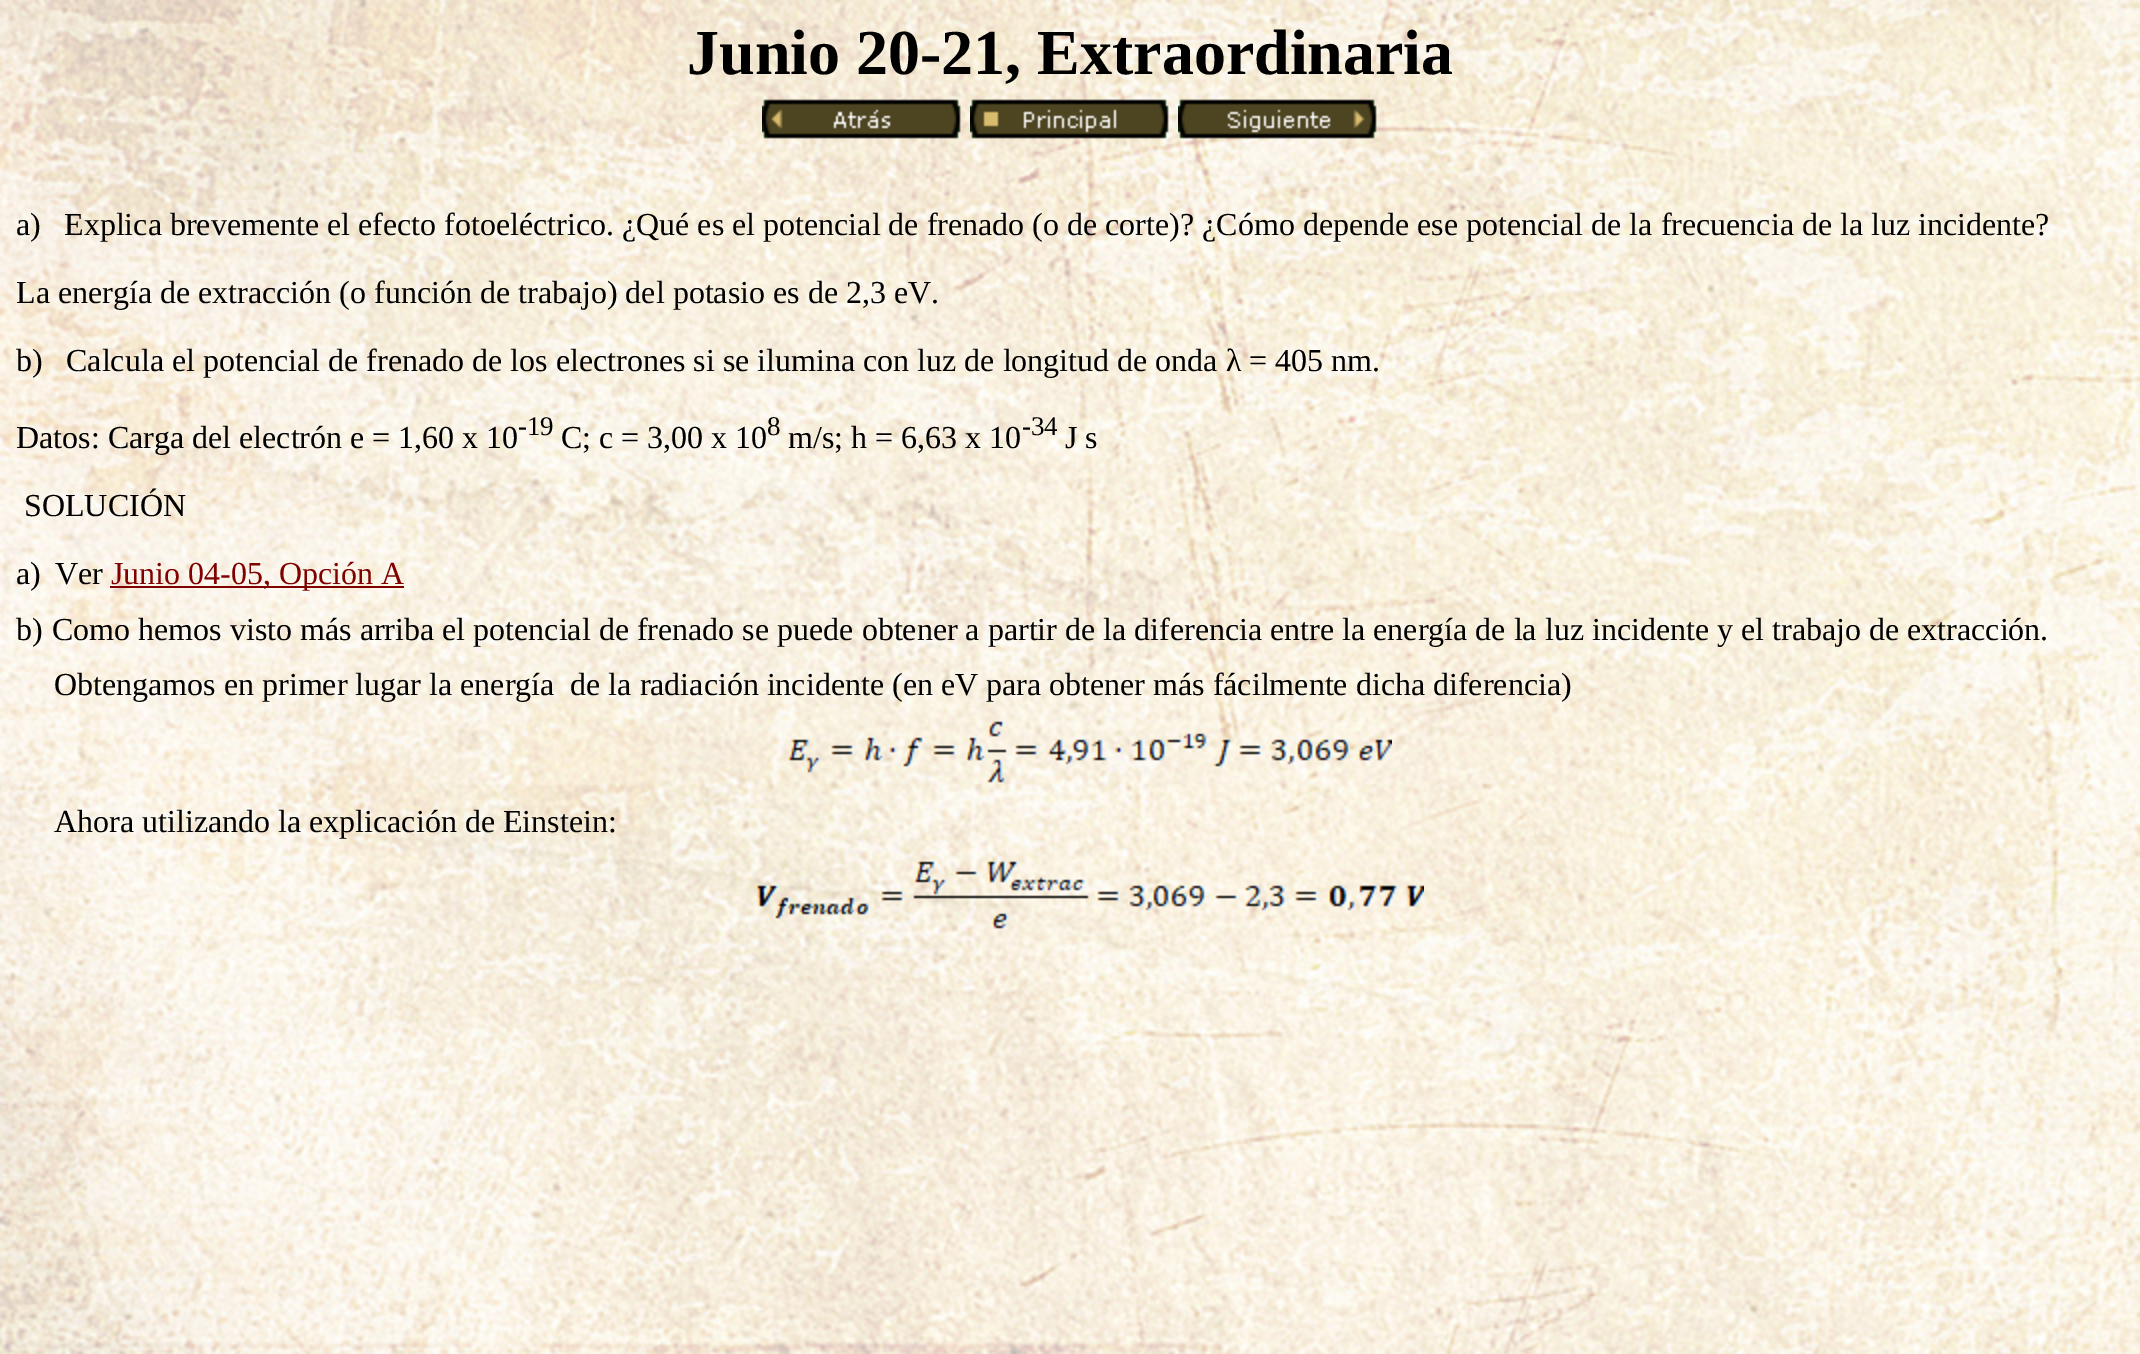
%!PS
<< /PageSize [2140 1354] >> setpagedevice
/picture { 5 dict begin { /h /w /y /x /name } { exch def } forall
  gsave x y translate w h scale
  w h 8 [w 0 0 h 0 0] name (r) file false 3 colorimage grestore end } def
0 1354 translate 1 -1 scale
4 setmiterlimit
1 setgray
0 0 2140 1354 rectfill
(img1.rgb) 0 0 2140 1354 picture
/LiberationSerif-Bold [64 0 0 -64 0 0] selectfont
0 setgray
687 74 moveto (Junio 20-21, Extraordinaria) show
(img2.rgb) 762 99 199 40 picture
(img3.rgb) 970 99 199 40 picture
(img4.rgb) 1178 99 199 40 picture
/LiberationSerif-Regular [32 0 0 -32 0 0] selectfont
16 235 moveto (a\)) show
64 235 moveto (Explica brevemente el efecto fotoeléctrico. ¿Qué es el potencial de frenado \(o de corte\)? ¿Cómo depende ese potencial de la frecuencia de la luz incidente?) show
16 303 moveto (La energía de extracción \(o función de trabajo\) del potasio es de 2,3 eV.) show
16 371 moveto (b\)) show
66 371 moveto (Calcula el potencial de frenado de los electrones si se ilumina con luz de longitud de onda λ = 405 nm.) show
16 448 moveto (Datos: Carga del electrón e = 1,60 x 10) show
/LiberationSerif-Regular [27 0 0 -27 0 0] selectfont
518 435 moveto (-19) show
/LiberationSerif-Regular [32 0 0 -32 0 0] selectfont
561 448 moveto (C; c = 3,00 x 10) show
/LiberationSerif-Regular [27 0 0 -27 0 0] selectfont
767 435 moveto (8) show
/LiberationSerif-Regular [32 0 0 -32 0 0] selectfont
788 448 moveto (m/s; h = 6,63 x 10) show
/LiberationSerif-Regular [27 0 0 -27 0 0] selectfont
1022 435 moveto (-34) show
/LiberationSerif-Regular [32 0 0 -32 0 0] selectfont
1065 448 moveto (J s) show
24 516 moveto (SOLUCIÓN) show
16 584 moveto (a\)) show
55 584 moveto (Ver) show
0.502 0 0 setrgbcolor
110 586 294 2 rectfill
111 584 moveto (Junio 04-05, Opción A) show
0 setgray
16 640 moveto (b\)) show
52 640 moveto (Como hemos visto más arriba el potencial de frenado se puede obtener a partir de la diferencia entre la energía de la luz incidente y el trabajo de extracción.) show
54 695 moveto (Obtengamos en primer lugar la energía  de la radiación incidente \(en eV para obtener más fácilmente dicha diferencia\)) show
(img5.rgb) 788 721 604 62 picture
54 832 moveto (Ahora utilizando la explicación de Einstein:) show
(img6.rgb) 756 861 668 68 picture
showpage
